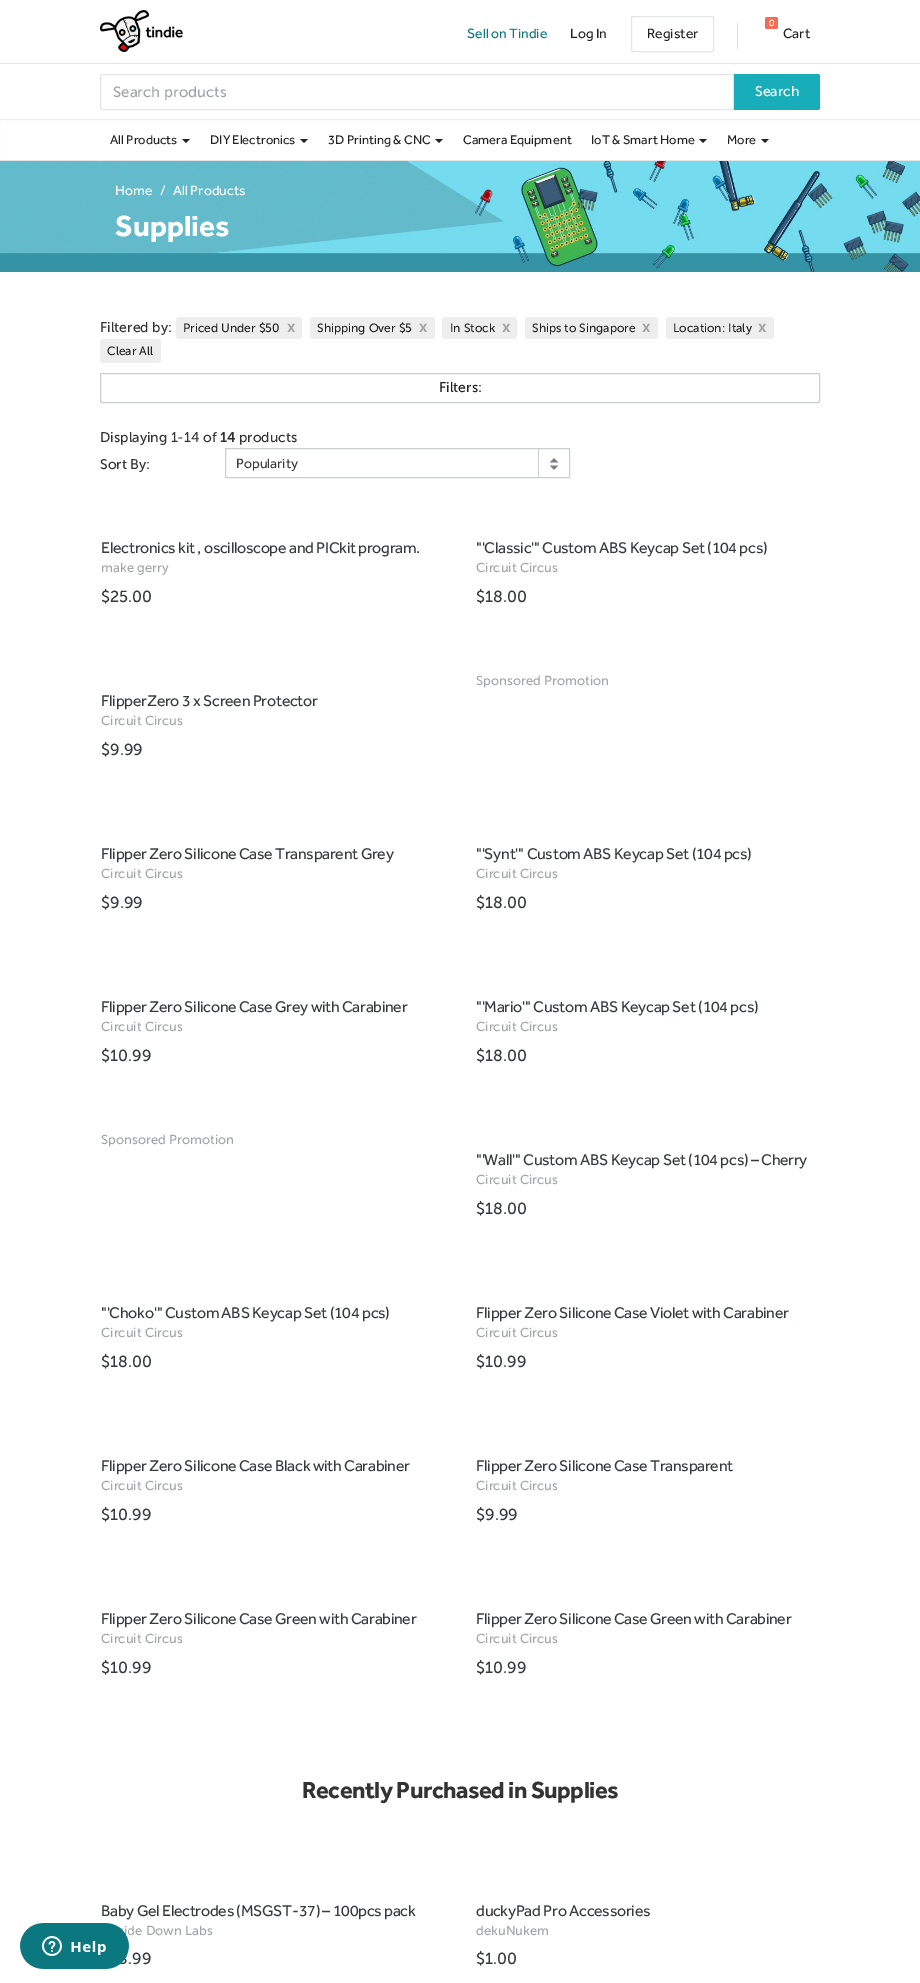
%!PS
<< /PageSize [920 1983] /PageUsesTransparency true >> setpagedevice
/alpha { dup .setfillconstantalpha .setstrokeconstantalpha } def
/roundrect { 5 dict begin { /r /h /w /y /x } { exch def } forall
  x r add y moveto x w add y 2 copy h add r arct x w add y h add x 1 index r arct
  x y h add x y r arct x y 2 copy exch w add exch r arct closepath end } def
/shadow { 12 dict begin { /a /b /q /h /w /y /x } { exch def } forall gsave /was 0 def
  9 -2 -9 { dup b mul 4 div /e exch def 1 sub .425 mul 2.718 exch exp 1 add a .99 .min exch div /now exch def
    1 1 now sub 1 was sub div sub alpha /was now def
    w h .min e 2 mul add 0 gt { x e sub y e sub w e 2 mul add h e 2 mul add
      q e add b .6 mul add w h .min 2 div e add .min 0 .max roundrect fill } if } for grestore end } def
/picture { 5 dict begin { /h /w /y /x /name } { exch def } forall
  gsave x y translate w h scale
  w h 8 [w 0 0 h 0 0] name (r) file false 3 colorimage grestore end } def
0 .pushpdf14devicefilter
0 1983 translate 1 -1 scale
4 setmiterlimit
1 setgray
0 0 920 1983 rectfill
0.894 0.898 0.906 setrgbcolor
0 63 920 1 rectfill
(img1.rgb) 100 10 83 42 picture
/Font-Regular [14 0 0 -14 0 0] selectfont
0.043 0.467 0.498 setrgbcolor
467 38 moveto (Sell on Tindie) show
0.133 setgray
570 38 moveto (Log In) show
0.894 0.898 0.906 setrgbcolor
631.5 16.5 82 35 1.5 roundrect stroke
0.133 setgray
647 38 moveto (Register) show
0.867 0.875 0.882 setrgbcolor
737 23 1 26 rectfill
0.953 0.424 0.329 setrgbcolor
765 17 13 12 2 roundrect fill
/Font-Regular [10 0 0 -10 0 0] selectfont
1 setgray
769 26 moveto (0) show
/Font-Regular [14 0 0 -14 0 0] selectfont
0.133 setgray
783 38 moveto (Cart) show
0.894 0.898 0.906 setrgbcolor
newpath 102 74.5 moveto 733.5 74.5 lineto 733.5 109.5 lineto 102 109.5 lineto 101 109.5 100.5 109 100.5 108 curveto 100.5 76 lineto 100.5 75 101 74.5 102 74.5 curveto closepath stroke
/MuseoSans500-Regular [15 0 0 -15 0 0] selectfont
0.635 0.647 0.659 setrgbcolor
113 97 moveto (Search products) show
0.09 0.682 0.725 setrgbcolor
newpath 734 74 moveto 818 74 lineto 819 74 820 75 820 76 curveto 820 108 lineto 820 109 819 110 818 110 curveto 734 110 lineto closepath fill
/MuseoSans500-Regular [14 0 0 -14 0 0] selectfont
1 setgray
755 96 moveto (Search) show
0.949 setgray
-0.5 119.5 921 42 rectstroke
gsave
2 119 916 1 rectclip
0 setgray
0 121 920 41 0 2 0.1 shadow
grestore
0.894 0.898 0.906 setrgbcolor
0 160 920 1 rectfill
/Font-Regular [13 0 0 -13 0 0] selectfont
0.133 setgray
110 144 moveto (All Products) show
newpath 182 139 moveto 190 139 lineto 186 143 lineto closepath fill
210 144 moveto (DIY Electronics) show
newpath 300 139 moveto 308 139 lineto 304 143 lineto closepath fill
328 144 moveto (3D Printing & CNC) show
newpath 435 139 moveto 443 139 lineto 439 143 lineto closepath fill
463 144 moveto (Camera Equipment) show
591 144 moveto (IoT & Smart Home) show
newpath 699 139 moveto 707 139 lineto 703 143 lineto closepath fill
727 144 moveto (More) show
newpath 761 139 moveto 769 139 lineto 765 143 lineto closepath fill
/MuseoSans500-Regular [13 0 0 -13 0 0] selectfont
0.635 0.647 0.659 setrgbcolor
124 1935 moveto (ide Down Labs) show
/MuseoSans500-Regular [16 0 0 -16 0 0] selectfont
0.216 0.231 0.243 setrgbcolor
128 1964 moveto (.99) show
(img2.rgb) 20 1923 109 46 picture
(img3.rgb) 0 161 920 111 picture
/Font-Regular [14 0 0 -14 0 0] selectfont
1 setgray
115 195 moveto (Home) show
160 195 moveto (/) show
173 195 moveto (All Products) show
/Font-Bold [30 0 0 -30 0 0] selectfont
115 236 moveto (Supplies) show
/MuseoSans500-Regular [14 0 0 -14 0 0] selectfont
0.2 setgray
100 332 moveto (Filtered by:) show
0.933 setgray
176 317 126 22 3 roundrect fill
/MuseoSans500-Regular [12 0 0 -12 0 0] selectfont
0.133 setgray
183 332 moveto (Priced Under $50) show
/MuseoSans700-SemiBold [16 0 0 -16 0 0] selectfont
0.635 setgray
287 332 moveto (x) show
0.933 setgray
310 317 125 22 3 roundrect fill
/MuseoSans500-Regular [12 0 0 -12 0 0] selectfont
0.133 setgray
317 332 moveto (Shipping Over $5) show
/MuseoSans700-SemiBold [16 0 0 -16 0 0] selectfont
0.635 setgray
419 332 moveto (x) show
0.933 setgray
442 317 75 22 3 roundrect fill
/MuseoSans500-Regular [12 0 0 -12 0 0] selectfont
0.133 setgray
450 332 moveto (In Stock) show
/MuseoSans700-SemiBold [16 0 0 -16 0 0] selectfont
0.635 setgray
502 332 moveto (x) show
0.933 setgray
525 317 133 22 3 roundrect fill
/MuseoSans500-Regular [12 0 0 -12 0 0] selectfont
0.133 setgray
532 332 moveto (Ships to Singapore) show
/MuseoSans700-SemiBold [16 0 0 -16 0 0] selectfont
0.635 setgray
642 332 moveto (x) show
0.933 setgray
666 317 108 22 3 roundrect fill
/MuseoSans500-Regular [12 0 0 -12 0 0] selectfont
0.133 setgray
673 332 moveto (Location: Italy) show
/MuseoSans700-SemiBold [16 0 0 -16 0 0] selectfont
0.635 setgray
758 332 moveto (x) show
0.933 setgray
100 339 61 24 3 roundrect fill
/MuseoSans500-Regular [12 0 0 -12 0 0] selectfont
0.133 setgray
107 355 moveto (Clear All) show
0.792 0.808 0.812 setrgbcolor
100.5 373.5 719 29 1.5 roundrect stroke
/MuseoSans500-Regular [14 0 0 -14 0 0] selectfont
0.133 setgray
439 392 moveto (Filters:) show
0.2 setgray
100 442 moveto (Displaying 1-14 of) show
/MuseoSans700-SemiBold [14 0 0 -14 0 0] selectfont
220 442 moveto (14) show
/MuseoSans500-Regular [14 0 0 -14 0 0] selectfont
239 442 moveto (products) show
100 469 moveto (Sort By:) show
0.792 0.808 0.812 setrgbcolor
225.5 448.5 344 29 0.5 roundrect stroke
/Font-Regular [14 0 0 -14 0 0] selectfont
0.216 0.231 0.243 setrgbcolor
236 468 moveto (Popularity) show
(img4.rgb) 549 458 10 12 picture
0.792 0.808 0.812 setrgbcolor
538 449 1 28 rectfill
/Font-Regular [16 0 0 -16 0 0] selectfont
0.216 0.231 0.243 setrgbcolor
101 553 moveto -0.3 0 (Electronics kit , oscilloscope and PICkit program.) ashow
/MuseoSans500-Regular [13 0 0 -13 0 0] selectfont
0.635 0.647 0.659 setrgbcolor
101 572 moveto (make gerry) show
/MuseoSans500-Regular [16 0 0 -16 0 0] selectfont
0.216 0.231 0.243 setrgbcolor
101 602 moveto ($25.00) show
/Font-Regular [16 0 0 -16 0 0] selectfont
476 553 moveto -0.3 0 ("'Classic'" Custom ABS Keycap Set \(104 pcs\)) ashow
/MuseoSans500-Regular [13 0 0 -13 0 0] selectfont
0.635 0.647 0.659 setrgbcolor
476 572 moveto (Circuit Circus) show
/MuseoSans500-Regular [16 0 0 -16 0 0] selectfont
0.216 0.231 0.243 setrgbcolor
476 602 moveto ($18.00) show
/MuseoSans500-Regular [13 0 0 -13 0 0] selectfont
0.635 0.647 0.659 setrgbcolor
476 685 moveto (Sponsored Promotion) show
/Font-Regular [16 0 0 -16 0 0] selectfont
0.216 0.231 0.243 setrgbcolor
101 706 moveto -0.3 0 (FlipperZero 3 x Screen Protector) ashow
/MuseoSans500-Regular [13 0 0 -13 0 0] selectfont
0.635 0.647 0.659 setrgbcolor
101 725 moveto (Circuit Circus) show
/MuseoSans500-Regular [16 0 0 -16 0 0] selectfont
0.216 0.231 0.243 setrgbcolor
101 755 moveto ($9.99) show
/Font-Regular [16 0 0 -16 0 0] selectfont
101 859 moveto -0.3 0 (Flipper Zero Silicone Case Transparent Grey) ashow
/MuseoSans500-Regular [13 0 0 -13 0 0] selectfont
0.635 0.647 0.659 setrgbcolor
101 878 moveto (Circuit Circus) show
/MuseoSans500-Regular [16 0 0 -16 0 0] selectfont
0.216 0.231 0.243 setrgbcolor
101 908 moveto ($9.99) show
/Font-Regular [16 0 0 -16 0 0] selectfont
476 859 moveto -0.3 0 ("'Synt'" Custom ABS Keycap Set \(104 pcs\)) ashow
/MuseoSans500-Regular [13 0 0 -13 0 0] selectfont
0.635 0.647 0.659 setrgbcolor
476 878 moveto (Circuit Circus) show
/MuseoSans500-Regular [16 0 0 -16 0 0] selectfont
0.216 0.231 0.243 setrgbcolor
476 908 moveto ($18.00) show
/Font-Regular [16 0 0 -16 0 0] selectfont
101 1012 moveto -0.3 0 (Flipper Zero Silicone Case Grey with Carabiner) ashow
/MuseoSans500-Regular [13 0 0 -13 0 0] selectfont
0.635 0.647 0.659 setrgbcolor
101 1031 moveto (Circuit Circus) show
/MuseoSans500-Regular [16 0 0 -16 0 0] selectfont
0.216 0.231 0.243 setrgbcolor
101 1061 moveto ($10.99) show
/Font-Regular [16 0 0 -16 0 0] selectfont
476 1012 moveto -0.3 0 ("'Mario'" Custom ABS Keycap Set \(104 pcs\)) ashow
/MuseoSans500-Regular [13 0 0 -13 0 0] selectfont
0.635 0.647 0.659 setrgbcolor
476 1031 moveto (Circuit Circus) show
/MuseoSans500-Regular [16 0 0 -16 0 0] selectfont
0.216 0.231 0.243 setrgbcolor
476 1061 moveto ($18.00) show
/MuseoSans500-Regular [13 0 0 -13 0 0] selectfont
0.635 0.647 0.659 setrgbcolor
101 1144 moveto (Sponsored Promotion) show
/Font-Regular [16 0 0 -16 0 0] selectfont
0.216 0.231 0.243 setrgbcolor
476 1165 moveto -0.3 0 ("'Wall'" Custom ABS Keycap Set \(104 pcs\) – Cherry) ashow
/MuseoSans500-Regular [13 0 0 -13 0 0] selectfont
0.635 0.647 0.659 setrgbcolor
476 1184 moveto (Circuit Circus) show
/MuseoSans500-Regular [16 0 0 -16 0 0] selectfont
0.216 0.231 0.243 setrgbcolor
476 1214 moveto ($18.00) show
/Font-Regular [16 0 0 -16 0 0] selectfont
101 1318 moveto -0.3 0 ("'Choko'" Custom ABS Keycap Set \(104 pcs\)) ashow
/MuseoSans500-Regular [13 0 0 -13 0 0] selectfont
0.635 0.647 0.659 setrgbcolor
101 1337 moveto (Circuit Circus) show
/MuseoSans500-Regular [16 0 0 -16 0 0] selectfont
0.216 0.231 0.243 setrgbcolor
101 1367 moveto ($18.00) show
/Font-Regular [16 0 0 -16 0 0] selectfont
476 1318 moveto -0.3 0 (Flipper Zero Silicone Case Violet with Carabiner) ashow
/MuseoSans500-Regular [13 0 0 -13 0 0] selectfont
0.635 0.647 0.659 setrgbcolor
476 1337 moveto (Circuit Circus) show
/MuseoSans500-Regular [16 0 0 -16 0 0] selectfont
0.216 0.231 0.243 setrgbcolor
476 1367 moveto ($10.99) show
/Font-Regular [16 0 0 -16 0 0] selectfont
101 1471 moveto -0.3 0 (Flipper Zero Silicone Case Black with Carabiner) ashow
/MuseoSans500-Regular [13 0 0 -13 0 0] selectfont
0.635 0.647 0.659 setrgbcolor
101 1490 moveto (Circuit Circus) show
/MuseoSans500-Regular [16 0 0 -16 0 0] selectfont
0.216 0.231 0.243 setrgbcolor
101 1520 moveto ($10.99) show
/Font-Regular [16 0 0 -16 0 0] selectfont
476 1471 moveto -0.3 0 (Flipper Zero Silicone Case Transparent) ashow
/MuseoSans500-Regular [13 0 0 -13 0 0] selectfont
0.635 0.647 0.659 setrgbcolor
476 1490 moveto (Circuit Circus) show
/MuseoSans500-Regular [16 0 0 -16 0 0] selectfont
0.216 0.231 0.243 setrgbcolor
476 1520 moveto ($9.99) show
/Font-Regular [16 0 0 -16 0 0] selectfont
101 1624 moveto -0.3 0 (Flipper Zero Silicone Case Green with Carabiner) ashow
/MuseoSans500-Regular [13 0 0 -13 0 0] selectfont
0.635 0.647 0.659 setrgbcolor
101 1643 moveto (Circuit Circus) show
/MuseoSans500-Regular [16 0 0 -16 0 0] selectfont
0.216 0.231 0.243 setrgbcolor
101 1673 moveto ($10.99) show
/Font-Regular [16 0 0 -16 0 0] selectfont
476 1624 moveto -0.3 0 (Flipper Zero Silicone Case Green with Carabiner) ashow
/MuseoSans500-Regular [13 0 0 -13 0 0] selectfont
0.635 0.647 0.659 setrgbcolor
476 1643 moveto (Circuit Circus) show
/MuseoSans500-Regular [16 0 0 -16 0 0] selectfont
0.216 0.231 0.243 setrgbcolor
476 1673 moveto ($10.99) show
/Font-Bold [24 0 0 -24 0 0] selectfont
0.2 setgray
302 1798 moveto -0.5 0 (Recently Purchased in Supplies) ashow
/Font-Regular [16 0 0 -16 0 0] selectfont
0.216 0.231 0.243 setrgbcolor
101 1916 moveto -0.3 0 (Baby Gel Electrodes \(MSGST-37\) – 100pcs pack) ashow
476 1916 moveto -0.3 0 (duckyPad Pro Accessories) ashow
/MuseoSans500-Regular [13 0 0 -13 0 0] selectfont
0.635 0.647 0.659 setrgbcolor
476 1935 moveto (dekuNukem) show
/MuseoSans500-Regular [16 0 0 -16 0 0] selectfont
0.216 0.231 0.243 setrgbcolor
476 1964 moveto ($1.00) show
.poppdf14devicefilter showpage
